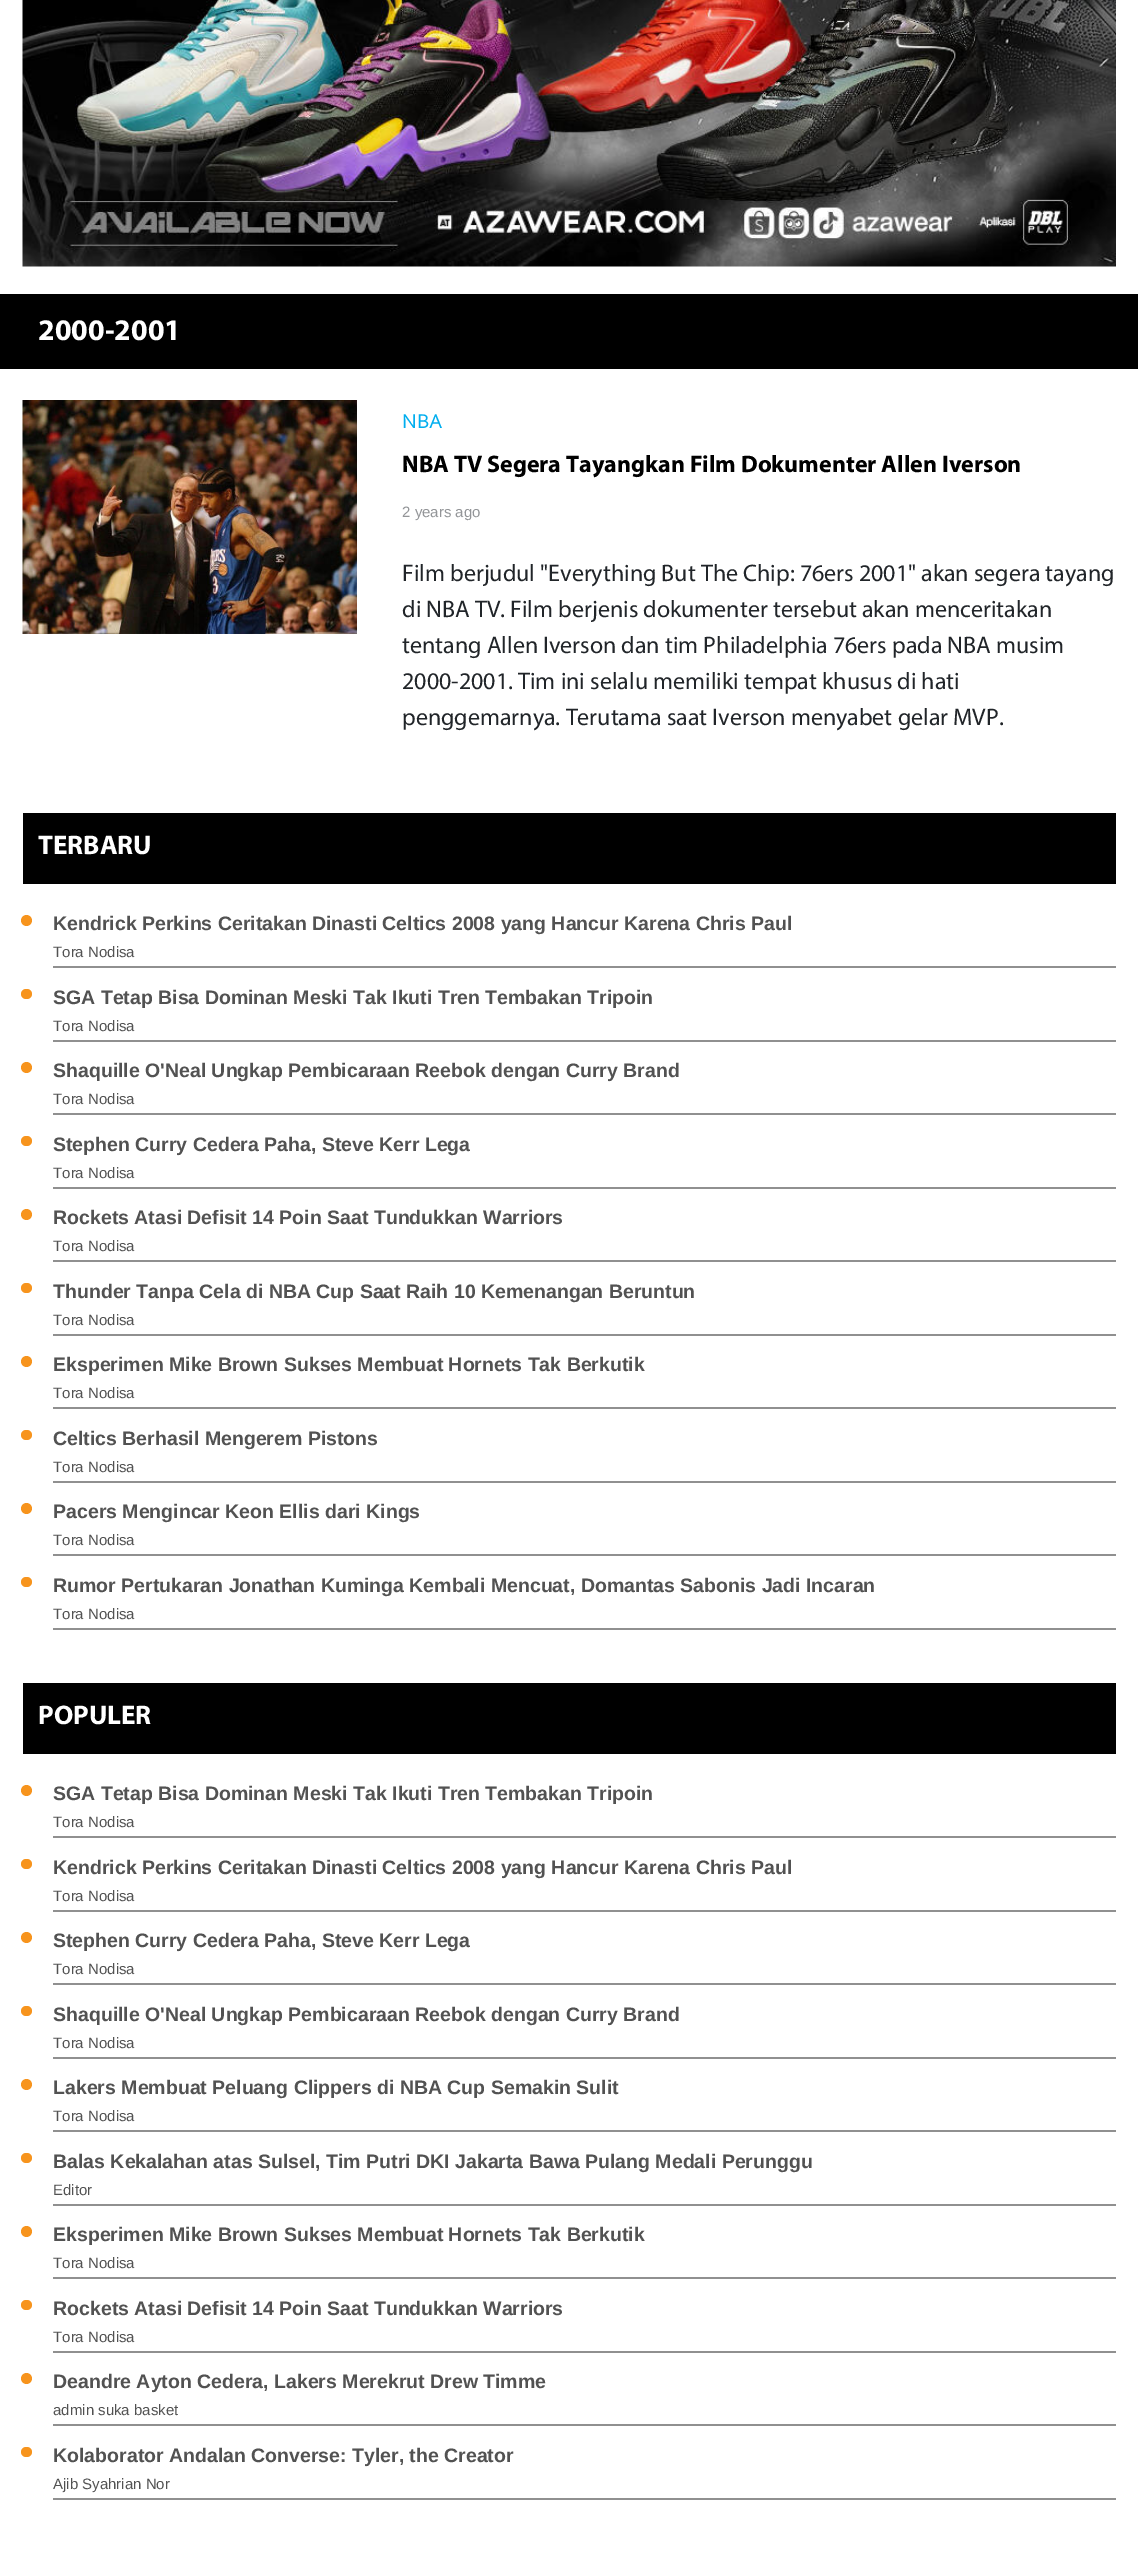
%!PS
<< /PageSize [1138 2564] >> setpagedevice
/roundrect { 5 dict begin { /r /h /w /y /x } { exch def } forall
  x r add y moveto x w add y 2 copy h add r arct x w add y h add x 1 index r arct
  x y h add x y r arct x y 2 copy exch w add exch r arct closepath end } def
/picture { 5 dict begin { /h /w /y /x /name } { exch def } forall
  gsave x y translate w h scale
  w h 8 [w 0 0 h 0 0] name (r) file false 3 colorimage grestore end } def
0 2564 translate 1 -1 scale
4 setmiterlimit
1 setgray
0 0 1138 2564 rectfill
(img1.rgb) 22 0 1094 267 picture
0 setgray
0 294 1138 75 rectfill
/Myriad-Bold [30 0 0 -30 0 0] selectfont
1 setgray
38 340 moveto (2000-2001) show
(img2.rgb) 22 400 335 234 picture
/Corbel-Regular [21 0 0 -21 0 0] selectfont
0 0.682 0.937 setrgbcolor
402 428 moveto (NBA) show
/Myriad-Bold [24 0 0 -24 0 0] selectfont
0 setgray
402 472 moveto (NBA TV Segera Tayangkan Film Dokumenter Allen Iverson) show
/LiberationSans-Regular [15 0 0 -15 0 0] selectfont
0.576 0.584 0.596 setrgbcolor
402 517 moveto (2 years ago) show
/Myriad-Regular [24 0 0 -24 0 0] selectfont
0.129 0.145 0.161 setrgbcolor
402 581 moveto (Film berjudul "Everything But The Chip: 76ers 2001" akan segera tayang) show
402 617 moveto (di NBA TV. Film berjenis dokumenter tersebut akan menceritakan) show
402 653 moveto (tentang Allen Iverson dan tim Philadelphia 76ers pada NBA musim) show
402 689 moveto (2000-2001. Tim ini selalu memiliki tempat khusus di hati) show
402 725 moveto (penggemarnya. Terutama saat Iverson menyabet gelar MVP.) show
0 setgray
23 813 1093 71 rectfill
/Myriad-Bold [27 0 0 -27 0 0] selectfont
1 setgray
38 854 moveto (TERBARU) show
0.565 setgray
53 966 1063 2 rectfill
0.969 0.58 0.114 setrgbcolor
newpath 26.5 920.5 5.5 0 360 arc closepath fill
/LiberationSans-Bold [19.5 0 0 -19.5 0 0] selectfont
0.322 setgray
53 930 moveto (Kendrick Perkins Ceritakan Dinasti Celtics 2008 yang Hancur Karena Chris Paul) show
/LiberationSans-Regular [15 0 0 -15 0 0] selectfont
53 957 moveto (Tora Nodisa) show
0.565 setgray
53 1040 1063 2 rectfill
0.969 0.58 0.114 setrgbcolor
21 989 11 10 5 roundrect fill
/LiberationSans-Bold [19.5 0 0 -19.5 0 0] selectfont
0.322 setgray
53 1004 moveto (SGA Tetap Bisa Dominan Meski Tak Ikuti Tren Tembakan Tripoin) show
/LiberationSans-Regular [15 0 0 -15 0 0] selectfont
53 1031 moveto (Tora Nodisa) show
0.565 setgray
53 1113 1063 2 rectfill
0.969 0.58 0.114 setrgbcolor
newpath 26.5 1067.5 5.5 0 360 arc closepath fill
/LiberationSans-Bold [19.5 0 0 -19.5 0 0] selectfont
0.322 setgray
53 1077 moveto (Shaquille O'Neal Ungkap Pembicaraan Reebok dengan Curry Brand) show
/LiberationSans-Regular [15 0 0 -15 0 0] selectfont
53 1104 moveto (Tora Nodisa) show
0.565 setgray
53 1187 1063 2 rectfill
0.969 0.58 0.114 setrgbcolor
21 1136 11 10 5 roundrect fill
/LiberationSans-Bold [19.5 0 0 -19.5 0 0] selectfont
0.322 setgray
53 1151 moveto (Stephen Curry Cedera Paha, Steve Kerr Lega) show
/LiberationSans-Regular [15 0 0 -15 0 0] selectfont
53 1178 moveto (Tora Nodisa) show
0.565 setgray
53 1260 1063 2 rectfill
0.969 0.58 0.114 setrgbcolor
newpath 26.5 1214.5 5.5 0 360 arc closepath fill
/LiberationSans-Bold [19.5 0 0 -19.5 0 0] selectfont
0.322 setgray
53 1224 moveto (Rockets Atasi Defisit 14 Poin Saat Tundukkan Warriors) show
/LiberationSans-Regular [15 0 0 -15 0 0] selectfont
53 1251 moveto (Tora Nodisa) show
0.565 setgray
53 1334 1063 2 rectfill
0.969 0.58 0.114 setrgbcolor
21 1283 11 10 5 roundrect fill
/LiberationSans-Bold [19.5 0 0 -19.5 0 0] selectfont
0.322 setgray
53 1298 moveto (Thunder Tanpa Cela di NBA Cup Saat Raih 10 Kemenangan Beruntun) show
/LiberationSans-Regular [15 0 0 -15 0 0] selectfont
53 1325 moveto (Tora Nodisa) show
0.565 setgray
53 1407 1063 2 rectfill
0.969 0.58 0.114 setrgbcolor
newpath 26.5 1361.5 5.5 0 360 arc closepath fill
/LiberationSans-Bold [19.5 0 0 -19.5 0 0] selectfont
0.322 setgray
53 1371 moveto (Eksperimen Mike Brown Sukses Membuat Hornets Tak Berkutik) show
/LiberationSans-Regular [15 0 0 -15 0 0] selectfont
53 1398 moveto (Tora Nodisa) show
0.565 setgray
53 1481 1063 2 rectfill
0.969 0.58 0.114 setrgbcolor
21 1430 11 10 5 roundrect fill
/LiberationSans-Bold [19.5 0 0 -19.5 0 0] selectfont
0.322 setgray
53 1445 moveto (Celtics Berhasil Mengerem Pistons) show
/LiberationSans-Regular [15 0 0 -15 0 0] selectfont
53 1472 moveto (Tora Nodisa) show
0.565 setgray
53 1554 1063 2 rectfill
0.969 0.58 0.114 setrgbcolor
newpath 26.5 1508.5 5.5 0 360 arc closepath fill
/LiberationSans-Bold [19.5 0 0 -19.5 0 0] selectfont
0.322 setgray
53 1518 moveto (Pacers Mengincar Keon Ellis dari Kings) show
/LiberationSans-Regular [15 0 0 -15 0 0] selectfont
53 1545 moveto (Tora Nodisa) show
0.565 setgray
53 1628 1063 2 rectfill
0.969 0.58 0.114 setrgbcolor
21 1577 11 10 5 roundrect fill
/LiberationSans-Bold [19.5 0 0 -19.5 0 0] selectfont
0.322 setgray
53 1592 moveto (Rumor Pertukaran Jonathan Kuminga Kembali Mencuat, Domantas Sabonis Jadi Incaran) show
/LiberationSans-Regular [15 0 0 -15 0 0] selectfont
53 1619 moveto (Tora Nodisa) show
0 setgray
23 1683 1093 71 rectfill
/Myriad-Bold [27 0 0 -27 0 0] selectfont
1 setgray
38 1724 moveto (POPULER) show
0.565 setgray
53 1836 1063 2 rectfill
0.969 0.58 0.114 setrgbcolor
newpath 26.5 1790.5 5.5 0 360 arc closepath fill
/LiberationSans-Bold [19.5 0 0 -19.5 0 0] selectfont
0.322 setgray
53 1800 moveto (SGA Tetap Bisa Dominan Meski Tak Ikuti Tren Tembakan Tripoin) show
/LiberationSans-Regular [15 0 0 -15 0 0] selectfont
53 1827 moveto (Tora Nodisa) show
0.565 setgray
53 1910 1063 2 rectfill
0.969 0.58 0.114 setrgbcolor
21 1859 11 10 5 roundrect fill
/LiberationSans-Bold [19.5 0 0 -19.5 0 0] selectfont
0.322 setgray
53 1874 moveto (Kendrick Perkins Ceritakan Dinasti Celtics 2008 yang Hancur Karena Chris Paul) show
/LiberationSans-Regular [15 0 0 -15 0 0] selectfont
53 1901 moveto (Tora Nodisa) show
0.565 setgray
53 1983 1063 2 rectfill
0.969 0.58 0.114 setrgbcolor
newpath 26.5 1937.5 5.5 0 360 arc closepath fill
/LiberationSans-Bold [19.5 0 0 -19.5 0 0] selectfont
0.322 setgray
53 1947 moveto (Stephen Curry Cedera Paha, Steve Kerr Lega) show
/LiberationSans-Regular [15 0 0 -15 0 0] selectfont
53 1974 moveto (Tora Nodisa) show
0.565 setgray
53 2057 1063 2 rectfill
0.969 0.58 0.114 setrgbcolor
21 2006 11 10 5 roundrect fill
/LiberationSans-Bold [19.5 0 0 -19.5 0 0] selectfont
0.322 setgray
53 2021 moveto (Shaquille O'Neal Ungkap Pembicaraan Reebok dengan Curry Brand) show
/LiberationSans-Regular [15 0 0 -15 0 0] selectfont
53 2048 moveto (Tora Nodisa) show
0.565 setgray
53 2130 1063 2 rectfill
0.969 0.58 0.114 setrgbcolor
newpath 26.5 2084.5 5.5 0 360 arc closepath fill
/LiberationSans-Bold [19.5 0 0 -19.5 0 0] selectfont
0.322 setgray
53 2094 moveto (Lakers Membuat Peluang Clippers di NBA Cup Semakin Sulit) show
/LiberationSans-Regular [15 0 0 -15 0 0] selectfont
53 2121 moveto (Tora Nodisa) show
0.565 setgray
53 2204 1063 2 rectfill
0.969 0.58 0.114 setrgbcolor
21 2153 11 10 5 roundrect fill
/LiberationSans-Bold [19.5 0 0 -19.5 0 0] selectfont
0.322 setgray
53 2168 moveto (Balas Kekalahan atas Sulsel, Tim Putri DKI Jakarta Bawa Pulang Medali Perunggu) show
/LiberationSans-Regular [15 0 0 -15 0 0] selectfont
53 2195 moveto (Editor) show
0.565 setgray
53 2277 1063 2 rectfill
0.969 0.58 0.114 setrgbcolor
newpath 26.5 2231.5 5.5 0 360 arc closepath fill
/LiberationSans-Bold [19.5 0 0 -19.5 0 0] selectfont
0.322 setgray
53 2241 moveto (Eksperimen Mike Brown Sukses Membuat Hornets Tak Berkutik) show
/LiberationSans-Regular [15 0 0 -15 0 0] selectfont
53 2268 moveto (Tora Nodisa) show
0.565 setgray
53 2351 1063 2 rectfill
0.969 0.58 0.114 setrgbcolor
21 2300 11 10 5 roundrect fill
/LiberationSans-Bold [19.5 0 0 -19.5 0 0] selectfont
0.322 setgray
53 2315 moveto (Rockets Atasi Defisit 14 Poin Saat Tundukkan Warriors) show
/LiberationSans-Regular [15 0 0 -15 0 0] selectfont
53 2342 moveto (Tora Nodisa) show
0.565 setgray
53 2424 1063 2 rectfill
0.969 0.58 0.114 setrgbcolor
newpath 26.5 2378.5 5.5 0 360 arc closepath fill
/LiberationSans-Bold [19.5 0 0 -19.5 0 0] selectfont
0.322 setgray
53 2388 moveto (Deandre Ayton Cedera, Lakers Merekrut Drew Timme) show
/LiberationSans-Regular [15 0 0 -15 0 0] selectfont
53 2415 moveto (admin suka basket) show
0.565 setgray
53 2498 1063 2 rectfill
0.969 0.58 0.114 setrgbcolor
21 2447 11 10 5 roundrect fill
/LiberationSans-Bold [19.5 0 0 -19.5 0 0] selectfont
0.322 setgray
53 2462 moveto (Kolaborator Andalan Converse: Tyler, the Creator) show
/LiberationSans-Regular [15 0 0 -15 0 0] selectfont
53 2489 moveto (Ajib Syahrian Nor) show
showpage
